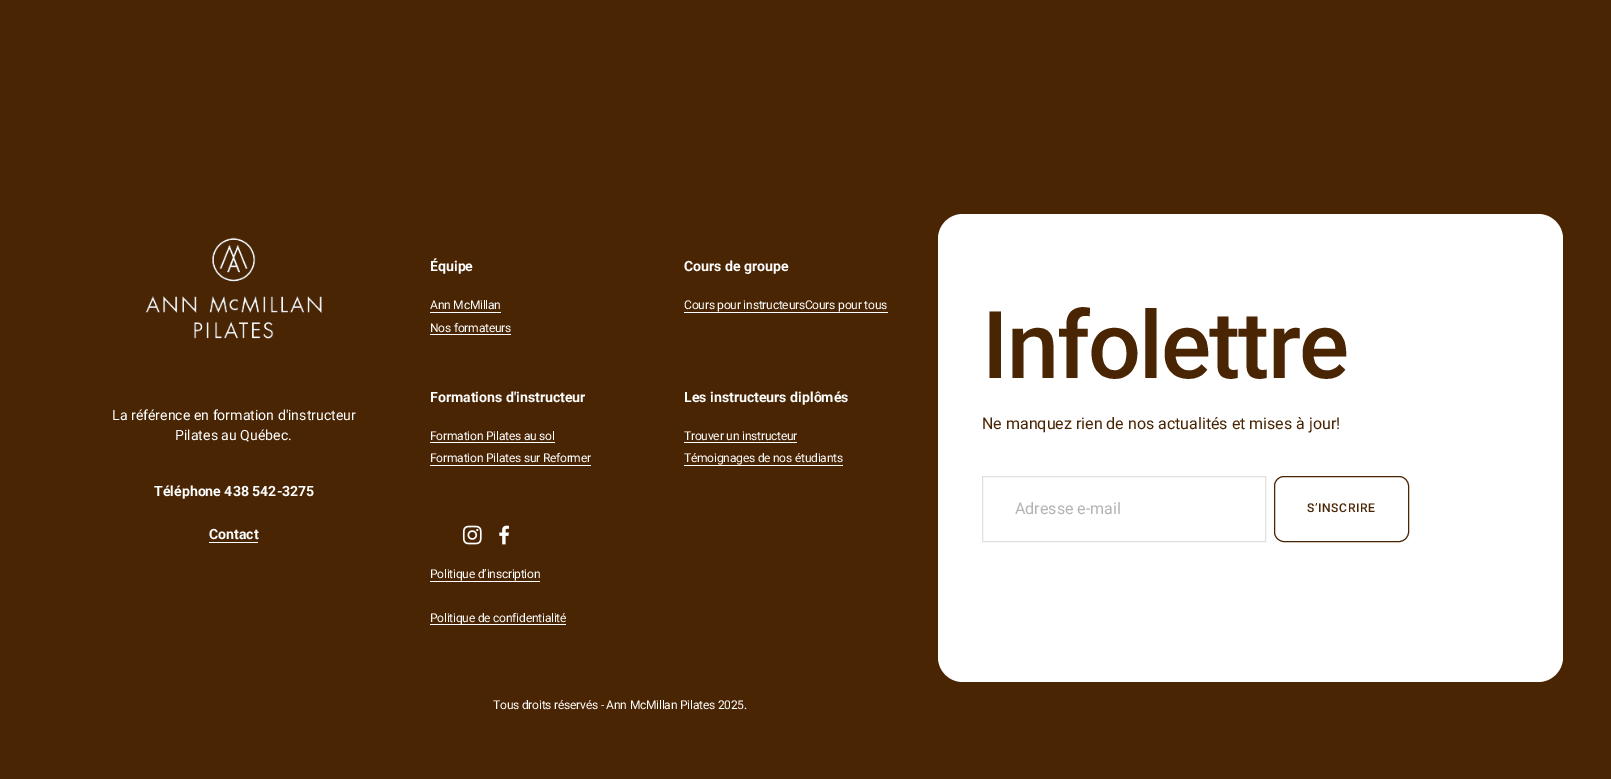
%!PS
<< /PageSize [1611 779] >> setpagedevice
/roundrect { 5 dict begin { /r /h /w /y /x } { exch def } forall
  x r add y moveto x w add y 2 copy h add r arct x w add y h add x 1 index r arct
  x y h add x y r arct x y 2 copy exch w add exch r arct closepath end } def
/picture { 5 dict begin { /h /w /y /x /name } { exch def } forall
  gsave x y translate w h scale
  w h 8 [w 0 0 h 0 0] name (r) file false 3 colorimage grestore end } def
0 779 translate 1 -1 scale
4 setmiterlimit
0.29 0.145 0.016 setrgbcolor
0 0 1611 779 rectfill
(img1.rgb) 145 237 177 102 picture
/Roboto-Bold [14.1 0 0 -14.1 0 0] selectfont
1 setgray
430 271 moveto (Équipe) show
/Roboto-Regular [12.1 0 0 -12.1 0 0] selectfont
430 309 moveto -0.25 0 (Ann McMillan) ashow
430 312 71 1 rectfill
430 332 moveto -0.25 0 (Nos formateurs) ashow
430 334 81 1 rectfill
/Roboto-Bold [14.1 0 0 -14.1 0 0] selectfont
684 271 moveto (Cours de groupe) show
/Roboto-Regular [12.1 0 0 -12.1 0 0] selectfont
684 309 moveto -0.25 0 (Cours pour instructeursCours pour tous) ashow
684 312 204 1 rectfill
/Roboto-Regular [14.1 0 0 -14.1 0 0] selectfont
112 420 moveto (La référence en formation d'instructeur) show
175 440 moveto (Pilates au Québec.) show
/Roboto-Bold [14.1 0 0 -14.1 0 0] selectfont
430 402 moveto (Formations d'instructeur) show
/Roboto-Regular [12.1 0 0 -12.1 0 0] selectfont
430 440 moveto -0.25 0 (Formation Pilates au sol) ashow
430 442 125 1 rectfill
430 462 moveto -0.25 0 (Formation Pilates sur Reformer) ashow
430 465 161 1 rectfill
/Roboto-Bold [14.1 0 0 -14.1 0 0] selectfont
684 402 moveto (Les instructeurs diplômés) show
/Roboto-Regular [12.1 0 0 -12.1 0 0] selectfont
684 440 moveto -0.25 0 (Trouver un instructeur) ashow
684 442 113 1 rectfill
684 462 moveto -0.25 0 (Témoignages de nos étudiants) ashow
684 465 159 1 rectfill
938 214 625 468 25 roundrect fill
/Roboto-Medium [93.5 0 0 -93.5 0 0] selectfont
0.29 0.145 0.016 setrgbcolor
982 378 moveto -1.9 0 (Infolettre) ashow
/Roboto-Regular [16 0 0 -16 0 0] selectfont
982 429 moveto (Ne manquez rien de nos actualités et mises à jour!) show
0.878 setgray
982.5 476.5 283 65 rectstroke
0.702 setgray
1015 514 moveto (Adresse e-mail) show
0.29 0.145 0.016 setrgbcolor
1274.5 476.5 134 65 9.5 roundrect stroke
/Roboto-Medium [12.1 0 0 -12.1 0 0] selectfont
1307 512 moveto 0.6 0 (S’INSCRIRE) ashow
/Roboto-Bold [14.1 0 0 -14.1 0 0] selectfont
1 setgray
154 496 moveto (Téléphone 438 542-3275) show
209 539 moveto (Contact) show
209 542 49 1 rectfill
(img2.rgb) 462 525 20 20 picture
(img3.rgb) 499 525 10 20 picture
/Roboto-Regular [12.1 0 0 -12.1 0 0] selectfont
430 578 moveto -0.25 0 (Politique d’inscription) ashow
430 581 110 1 rectfill
430 624 136 1 rectfill
430 622 moveto -0.25 0 (Politique de confidentialité) ashow
493 709 moveto -0.25 0 (Tous droits réservés - Ann McMillan Pilates 2025.) ashow
showpage
